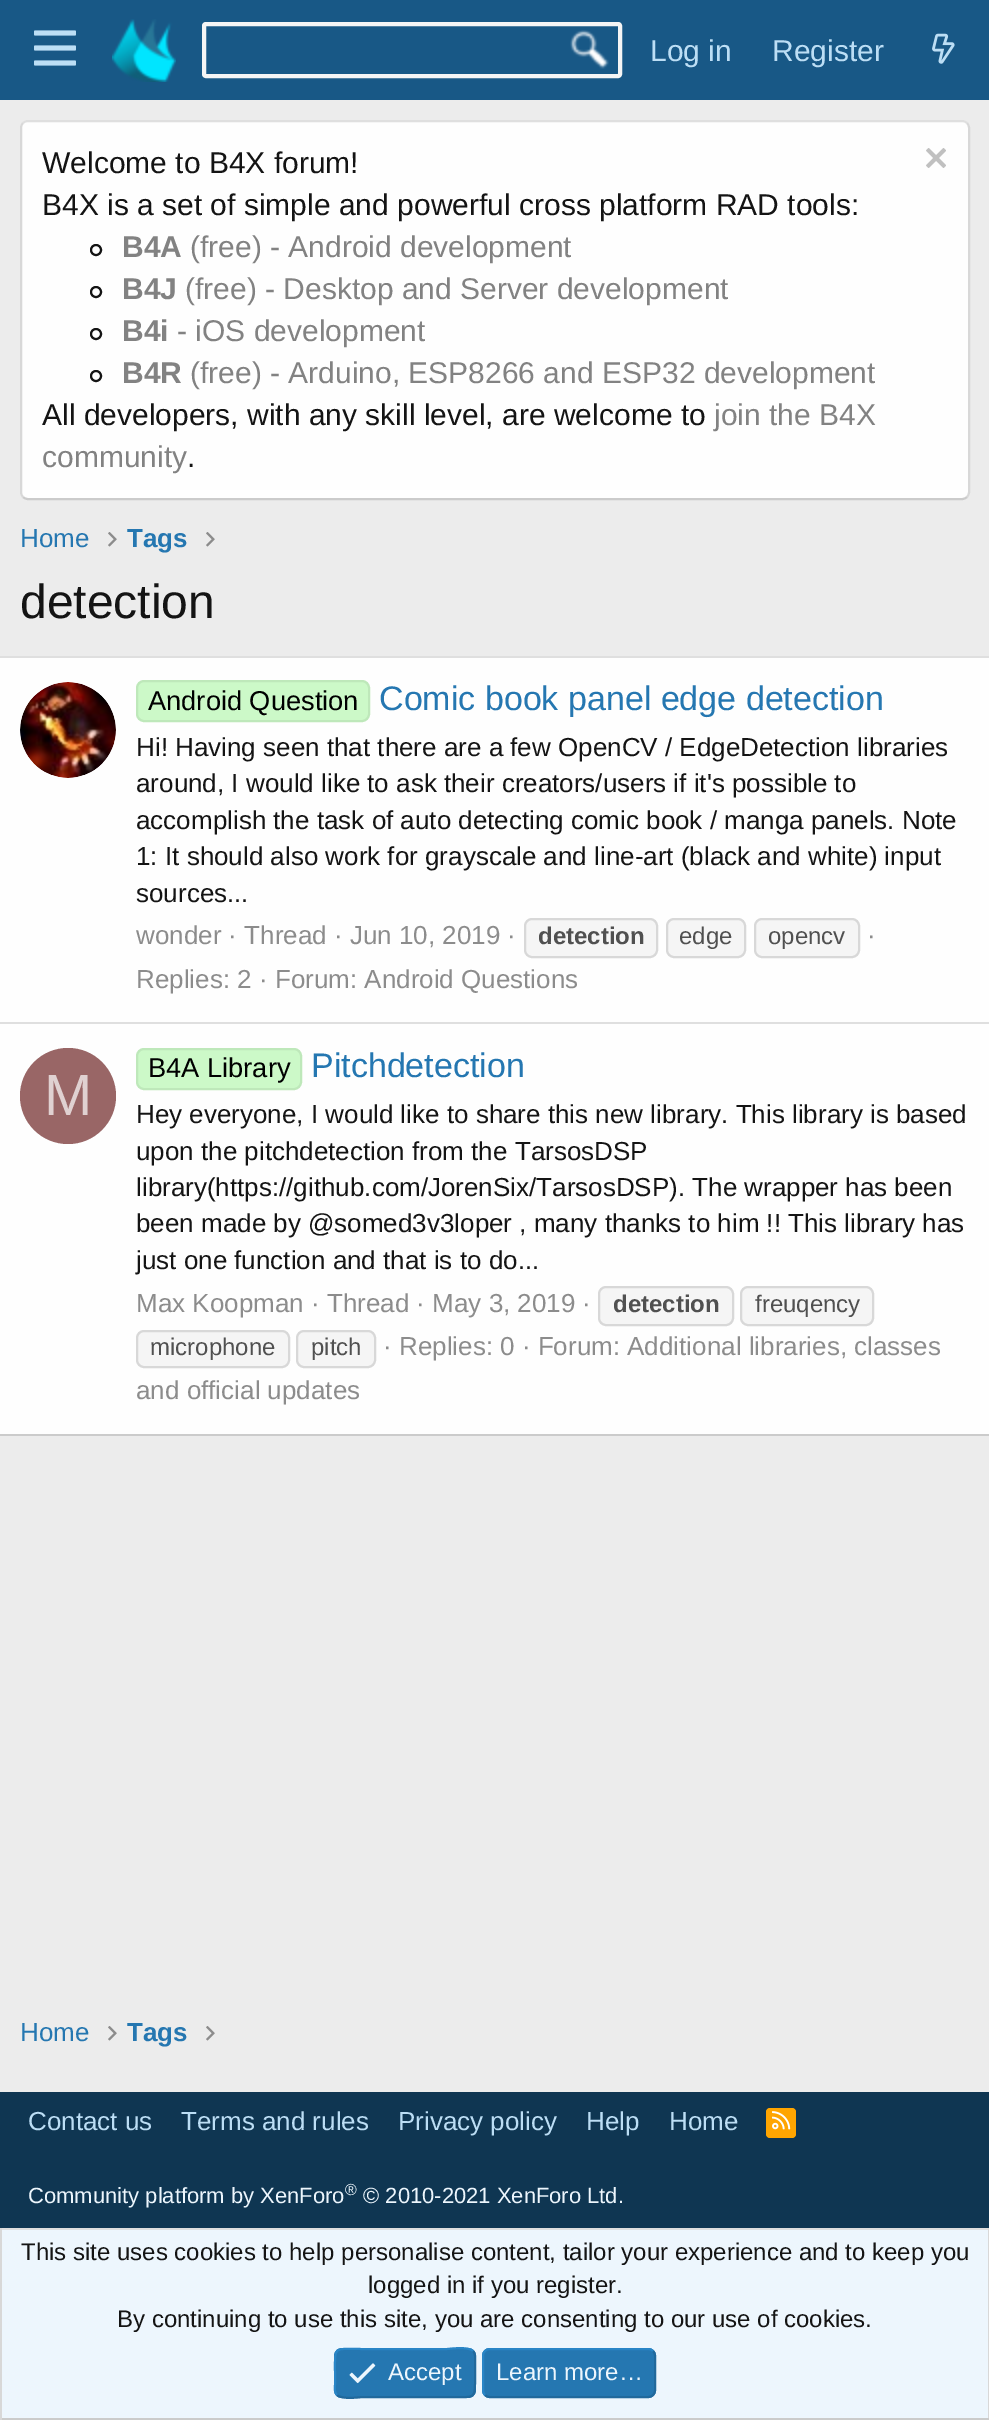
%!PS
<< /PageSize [989 2420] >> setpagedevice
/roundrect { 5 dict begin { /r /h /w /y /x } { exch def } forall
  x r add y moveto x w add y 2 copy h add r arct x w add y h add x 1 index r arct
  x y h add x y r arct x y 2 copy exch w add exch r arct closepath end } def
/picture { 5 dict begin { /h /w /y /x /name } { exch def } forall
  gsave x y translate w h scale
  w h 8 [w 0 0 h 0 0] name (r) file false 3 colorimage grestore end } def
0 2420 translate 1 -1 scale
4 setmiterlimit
0.925 setgray
0 0 989 2420 rectfill
0.094 0.345 0.525 setrgbcolor
0 0 989 100 rectfill
(img1.rgb) 34 30 42 36 picture
(img2.rgb) 112 19 64 63 picture
(img3.rgb) 570 30 39 39 picture
0.961 setgray
4 setlinewidth
204 24 416 52 2 roundrect stroke
/LiberationSans-Regular [30 0 0 -30 0 0] selectfont
0.737 0.871 0.961 setrgbcolor
650 61 moveto (Log in) show
772 61 moveto (Register) show
(img4.rgb) 932 33 23 31 picture
0.996 setgray
20 120 950 380 8 roundrect fill
0.875 setgray
2 setlinewidth
newpath 23 123 moveto 24.5 121.5 26 121 28 121 curveto 962 121 lineto 964 121 965.5 121.5 967 123 curveto stroke
0.847 setgray
newpath 967 123 moveto 968.5 124.5 969 126 969 128 curveto 969 492 lineto 969 494 968.5 495.5 967 497 curveto stroke
0.796 setgray
newpath 967 497 moveto 965.5 498.5 964 499 962 499 curveto 28 499 lineto 26 499 24.5 498.5 23 497 curveto stroke
0.847 setgray
newpath 23 497 moveto 21.5 495.5 21 494 21 492 curveto 21 128 lineto 21 126 21.5 124.5 23 123 curveto stroke
0.078 setgray
42 173 moveto (Welcome to B4X forum!) show
(img5.rgb) 926 148 20 20 picture
42 215 moveto (B4X is a set of simple and powerful cross platform RAD tools:) show
newpath 96 250 5 0 360 arc closepath stroke
/LiberationSans-Bold [30 0 0 -30 0 0] selectfont
0.51 setgray
122 257 moveto (B4A) show
/LiberationSans-Regular [30 0 0 -30 0 0] selectfont
190 257 moveto (\(free\) - Android development) show
0.078 setgray
newpath 96 292 5 0 360 arc closepath stroke
/LiberationSans-Bold [30 0 0 -30 0 0] selectfont
0.51 setgray
122 299 moveto (B4J) show
/LiberationSans-Regular [30 0 0 -30 0 0] selectfont
185 299 moveto (\(free\) - Desktop and Server development) show
0.078 setgray
newpath 96 334 5 0 360 arc closepath stroke
/LiberationSans-Bold [30 0 0 -30 0 0] selectfont
0.51 setgray
122 341 moveto (B4i) show
/LiberationSans-Regular [30 0 0 -30 0 0] selectfont
177 341 moveto (- iOS development) show
0.078 setgray
newpath 96 376 5 0 360 arc closepath stroke
/LiberationSans-Bold [30 0 0 -30 0 0] selectfont
0.51 setgray
122 383 moveto (B4R) show
/LiberationSans-Regular [30 0 0 -30 0 0] selectfont
190 383 moveto (\(free\) - Arduino, ESP8266 and ESP32 development) show
0.078 setgray
42 425 moveto (All developers, with any skill level, are welcome to) show
0.51 setgray
714 425 moveto (join the B4X) show
42 467 moveto (community) show
0.078 setgray
187 467 moveto (.) show
/LiberationSans-Regular [26 0 0 -26 0 0] selectfont
0.145 0.467 0.694 setrgbcolor
20 547 moveto (Home) show
(img6.rgb) 108 532 9 15 picture
/LiberationSans-Bold [26 0 0 -26 0 0] selectfont
127 547 moveto (Tags) show
(img6.rgb) 206 532 9 15 picture
/LiberationSans-Regular [48 0 0 -48 0 0] selectfont
0.078 setgray
20 618 moveto (detection) show
0.996 setgray
0 658 989 776 rectfill
0.875 setgray
0 656 989 2 rectfill
0.796 setgray
0 1434 989 2 rectfill
(img7.rgb) 20 682 96 96 picture
0.8 0.976 0.784 setrgbcolor
137 681 232 40 7 roundrect gsave fill grestore
0.745 0.91 0.729 setrgbcolor
stroke
/LiberationSans-Regular [27.25 0 0 -27.25 0 0] selectfont
0 setgray
148 710 moveto (Android Question) show
/LiberationSans-Regular [34 0 0 -34 0 0] selectfont
0.145 0.467 0.694 setrgbcolor
379 710 moveto (Comic book panel edge detection) show
/LiberationSans-Regular [26 0 0 -26 0 0] selectfont
0.078 setgray
136 756 moveto (Hi! Having seen that there are a few OpenCV / EdgeDetection libraries) show
136 792 moveto (around, I would like to ask their creators/users if it's possible to) show
136 829 moveto (accomplish the task of auto detecting comic book / manga panels. Note) show
136 865 moveto (1: It should also work for grayscale and line-art \(black and white\) input) show
136 902 moveto (sources...) show
0.549 setgray
136 944 moveto (wonder · Thread · Jun 10, 2019 ·) show
0.961 setgray
525 919 132 38 7 roundrect gsave fill grestore
0.847 setgray
stroke
/LiberationSans-Bold [24 0 0 -24 0 0] selectfont
0.314 setgray
538 944 moveto (detection) show
0.961 setgray
667 919 78 38 7 roundrect gsave fill grestore
0.847 setgray
stroke
/LiberationSans-Regular [24 0 0 -24 0 0] selectfont
0.314 setgray
679 944 moveto (edge) show
0.961 setgray
755 919 104 38 7 roundrect gsave fill grestore
0.847 setgray
stroke
0.314 setgray
768 944 moveto (opencv) show
/LiberationSans-Regular [26 0 0 -26 0 0] selectfont
0.549 setgray
867 944 moveto (·) show
136 988 moveto (Replies: 2 · Forum: Android Questions) show
0.875 setgray
0 1022 989 2 rectfill
0.6 0.4 0.4 setrgbcolor
newpath 68 1096 48 0 360 arc closepath fill
/LiberationSans-Regular [58 0 0 -58 0 0] selectfont
0.878 0.82 0.82 setrgbcolor
44 1115 moveto (M) show
0.8 0.976 0.784 setrgbcolor
137 1049 164 40 7 roundrect gsave fill grestore
0.745 0.91 0.729 setrgbcolor
stroke
/LiberationSans-Regular [27.25 0 0 -27.25 0 0] selectfont
0 setgray
148 1077 moveto (B4A Library) show
/LiberationSans-Regular [34 0 0 -34 0 0] selectfont
0.145 0.467 0.694 setrgbcolor
311 1077 moveto (Pitchdetection) show
/LiberationSans-Regular [26 0 0 -26 0 0] selectfont
0.078 setgray
136 1123 moveto (Hey everyone, I would like to share this new library. This library is based) show
136 1160 moveto (upon the pitchdetection from the TarsosDSP) show
136 1196 moveto (library\(https://github.com/JorenSix/TarsosDSP\). The wrapper has been) show
136 1232 moveto (been made by @somed3v3loper , many thanks to him !! This library has) show
136 1269 moveto (just one function and that is to do...) show
0.549 setgray
136 1312 moveto (Max Koopman · Thread · May 3, 2019 ·) show
0.961 setgray
599 1287 134 38 7 roundrect gsave fill grestore
0.847 setgray
stroke
/LiberationSans-Bold [24 0 0 -24 0 0] selectfont
0.314 setgray
613 1312 moveto (detection) show
0.961 setgray
741 1287 132 38 7 roundrect gsave fill grestore
0.847 setgray
stroke
/LiberationSans-Regular [24 0 0 -24 0 0] selectfont
0.314 setgray
755 1312 moveto (freuqency) show
0.961 setgray
137 1331 152 36 7 roundrect gsave fill grestore
0.847 setgray
stroke
0.314 setgray
150 1355 moveto (microphone) show
0.961 setgray
297 1331 78 36 7 roundrect gsave fill grestore
0.847 setgray
stroke
0.314 setgray
311 1355 moveto (pitch) show
/LiberationSans-Regular [26 0 0 -26 0 0] selectfont
0.549 setgray
383 1355 moveto (· Replies: 0 · Forum: Additional libraries, classes) show
136 1399 moveto (and official updates) show
0.145 0.467 0.694 setrgbcolor
20 2041 moveto (Home) show
(img6.rgb) 108 2026 9 15 picture
/LiberationSans-Bold [26 0 0 -26 0 0] selectfont
127 2041 moveto (Tags) show
(img6.rgb) 206 2026 9 15 picture
0.059 0.212 0.322 setrgbcolor
0 2092 989 136 rectfill
/LiberationSans-Regular [26 0 0 -26 0 0] selectfont
0.737 0.871 0.961 setrgbcolor
28 2130 moveto (Contact us) show
181 2130 moveto (Terms and rules) show
398 2130 moveto (Privacy policy) show
586 2130 moveto (Help) show
669 2130 moveto (Home) show
1 0.647 0 setrgbcolor
766 2108 30 30 4 roundrect fill
(img8.rgb) 772 2111 19 19 picture
/LiberationSans-Regular [22 0 0 -22 0 0] selectfont
0.929 0.965 0.992 setrgbcolor
28 2203 moveto (Community platform by XenForo) show
/LiberationSans-Regular [16 0 0 -16 0 0] selectfont
345 2195 moveto (®) show
/LiberationSans-Regular [22 0 0 -22 0 0] selectfont
363 2203 moveto (© 2010-2021 XenForo Ltd.) show
2 2230 986 188 rectfill
0.875 setgray
0 2228 989 2 rectfill
0.847 setgray
988 2228 1 192 rectfill
0.796 setgray
0 2418 989 2 rectfill
0.847 setgray
0 2228 2 192 rectfill
/LiberationSans-Regular [24 0 0 -24 0 0] selectfont
0.078 setgray
21 2260 moveto (This site uses cookies to help personalise content, tailor your experience and to keep you) show
368 2293 moveto (logged in if you register.) show
117 2327 moveto (By continuing to use this site, you are consenting to our use of cookies.) show
0.145 0.467 0.694 setrgbcolor
334 2348 142 50 8 roundrect fill
0.129 0.412 0.612 setrgbcolor
newpath 473 2351 moveto 476 2354 475 2358 475 2361.5 curveto 475 2373 lineto 475 2401 477.5 2397 447 2397 curveto 363 2397 lineto 361 2397 342 2400 337 2395 curveto stroke
0.161 0.522 0.776 setrgbcolor
newpath 337 2395 moveto 334 2392 335 2388 335 2384.5 curveto 335 2373 lineto 335 2345 332.5 2349 363 2349 curveto 447 2349 lineto 449 2349 468 2346 473 2351 curveto stroke
(img9.rgb) 349 2363 27 21 picture
0.929 0.965 0.992 setrgbcolor
388 2380 moveto (Accept) show
0.145 0.467 0.694 setrgbcolor
482 2348 174 50 8 roundrect fill
0.129 0.412 0.612 setrgbcolor
newpath 653 2351 moveto 654.5 2352.5 655 2354 655 2356 curveto 655 2390 lineto 655 2392 654.5 2393.5 653 2395 curveto 651.5 2396.5 650 2397 648 2397 curveto 490 2397 lineto 488 2397 486.5 2396.5 485 2395 curveto stroke
0.161 0.522 0.776 setrgbcolor
newpath 485 2395 moveto 483.5 2393.5 483 2392 483 2390 curveto 483 2356 lineto 483 2354 483.5 2352.5 485 2351 curveto 486.5 2349.5 488 2349 490 2349 curveto 648 2349 lineto 650 2349 651.5 2349.5 653 2351 curveto stroke
0.929 0.965 0.992 setrgbcolor
496 2380 moveto (Learn more…) show
showpage
